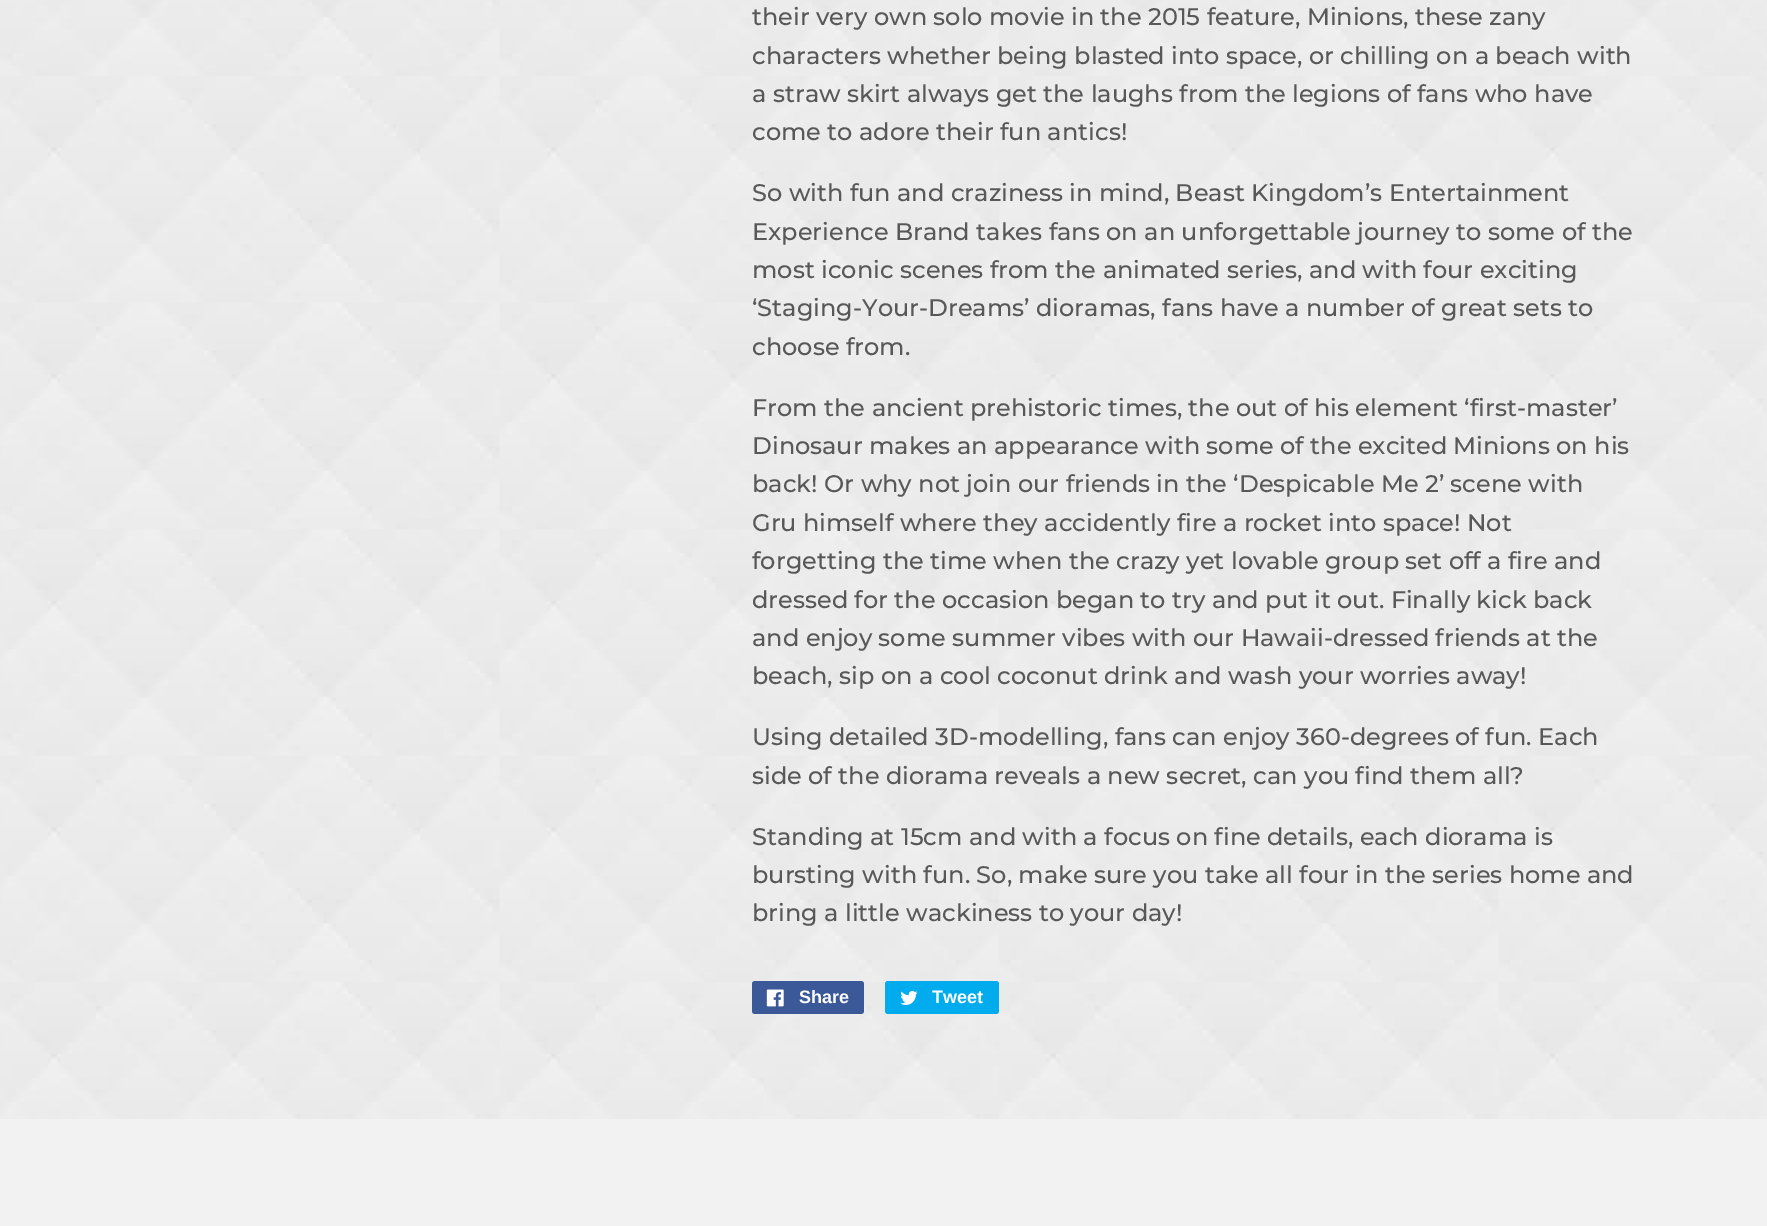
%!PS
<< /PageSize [1767 1226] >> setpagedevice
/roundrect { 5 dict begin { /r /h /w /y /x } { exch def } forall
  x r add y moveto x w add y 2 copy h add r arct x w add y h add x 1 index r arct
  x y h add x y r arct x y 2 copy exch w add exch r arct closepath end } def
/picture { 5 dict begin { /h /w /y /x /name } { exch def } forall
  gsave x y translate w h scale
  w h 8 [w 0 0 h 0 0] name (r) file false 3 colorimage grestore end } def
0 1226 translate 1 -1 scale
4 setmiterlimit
1 setgray
0 0 1767 1226 rectfill
(img1.rgb) 0 0 1767 1119 picture
/Montserrat-Medium [24 0 0 -24 0 0] selectfont
0.345 setgray
752 25 moveto (their very own solo movie in the 2015 feature, Minions, these zany) show
752 64 moveto (characters whether being blasted into space, or chilling on a beach with) show
752 102 moveto (a straw skirt always get the laughs from the legions of fans who have) show
752 140 moveto (come to adore their fun antics!) show
752 201 moveto (So with fun and craziness in mind, Beast Kingdom’s Entertainment) show
752 240 moveto (Experience Brand takes fans on an unforgettable journey to some of the) show
752 278 moveto (most iconic scenes from the animated series, and with four exciting) show
752 316 moveto (‘Staging-Your-Dreams’ dioramas, fans have a number of great sets to) show
752 355 moveto (choose from.) show
752 416 moveto (From the ancient prehistoric times, the out of his element ‘first-master’) show
752 454 moveto (Dinosaur makes an appearance with some of the excited Minions on his) show
752 492 moveto (back! Or why not join our friends in the ‘Despicable Me 2’ scene with) show
752 531 moveto (Gru himself where they accidently fire a rocket into space! Not) show
752 569 moveto (forgetting the time when the crazy yet lovable group set off a fire and) show
752 608 moveto (dressed for the occasion began to try and put it out. Finally kick back) show
752 646 moveto (and enjoy some summer vibes with our Hawaii-dressed friends at the) show
752 684 moveto (beach, sip on a cool coconut drink and wash your worries away!) show
752 745 moveto (Using detailed 3D-modelling, fans can enjoy 360-degrees of fun. Each) show
752 784 moveto (side of the diorama reveals a new secret, can you find them all?) show
752 845 moveto (Standing at 15cm and with a focus on fine details, each diorama is) show
752 883 moveto (bursting with fun. So, make sure you take all four in the series home and) show
752 921 moveto (bring a little wackiness to your day!) show
0.231 0.349 0.596 setrgbcolor
752 981 112 33 3 roundrect fill
(img2.rgb) 766 989 18 18 picture
/LiberationSans-Bold [18 0 0 -18 0 0] selectfont
1 setgray
799 1003 moveto (Share) show
0 0.675 0.929 setrgbcolor
885 981 114 33 3 roundrect fill
(img3.rgb) 900 990 18 15 picture
1 setgray
932 1003 moveto (Tweet) show
0.949 setgray
0 1119 1767 107 rectfill
showpage
